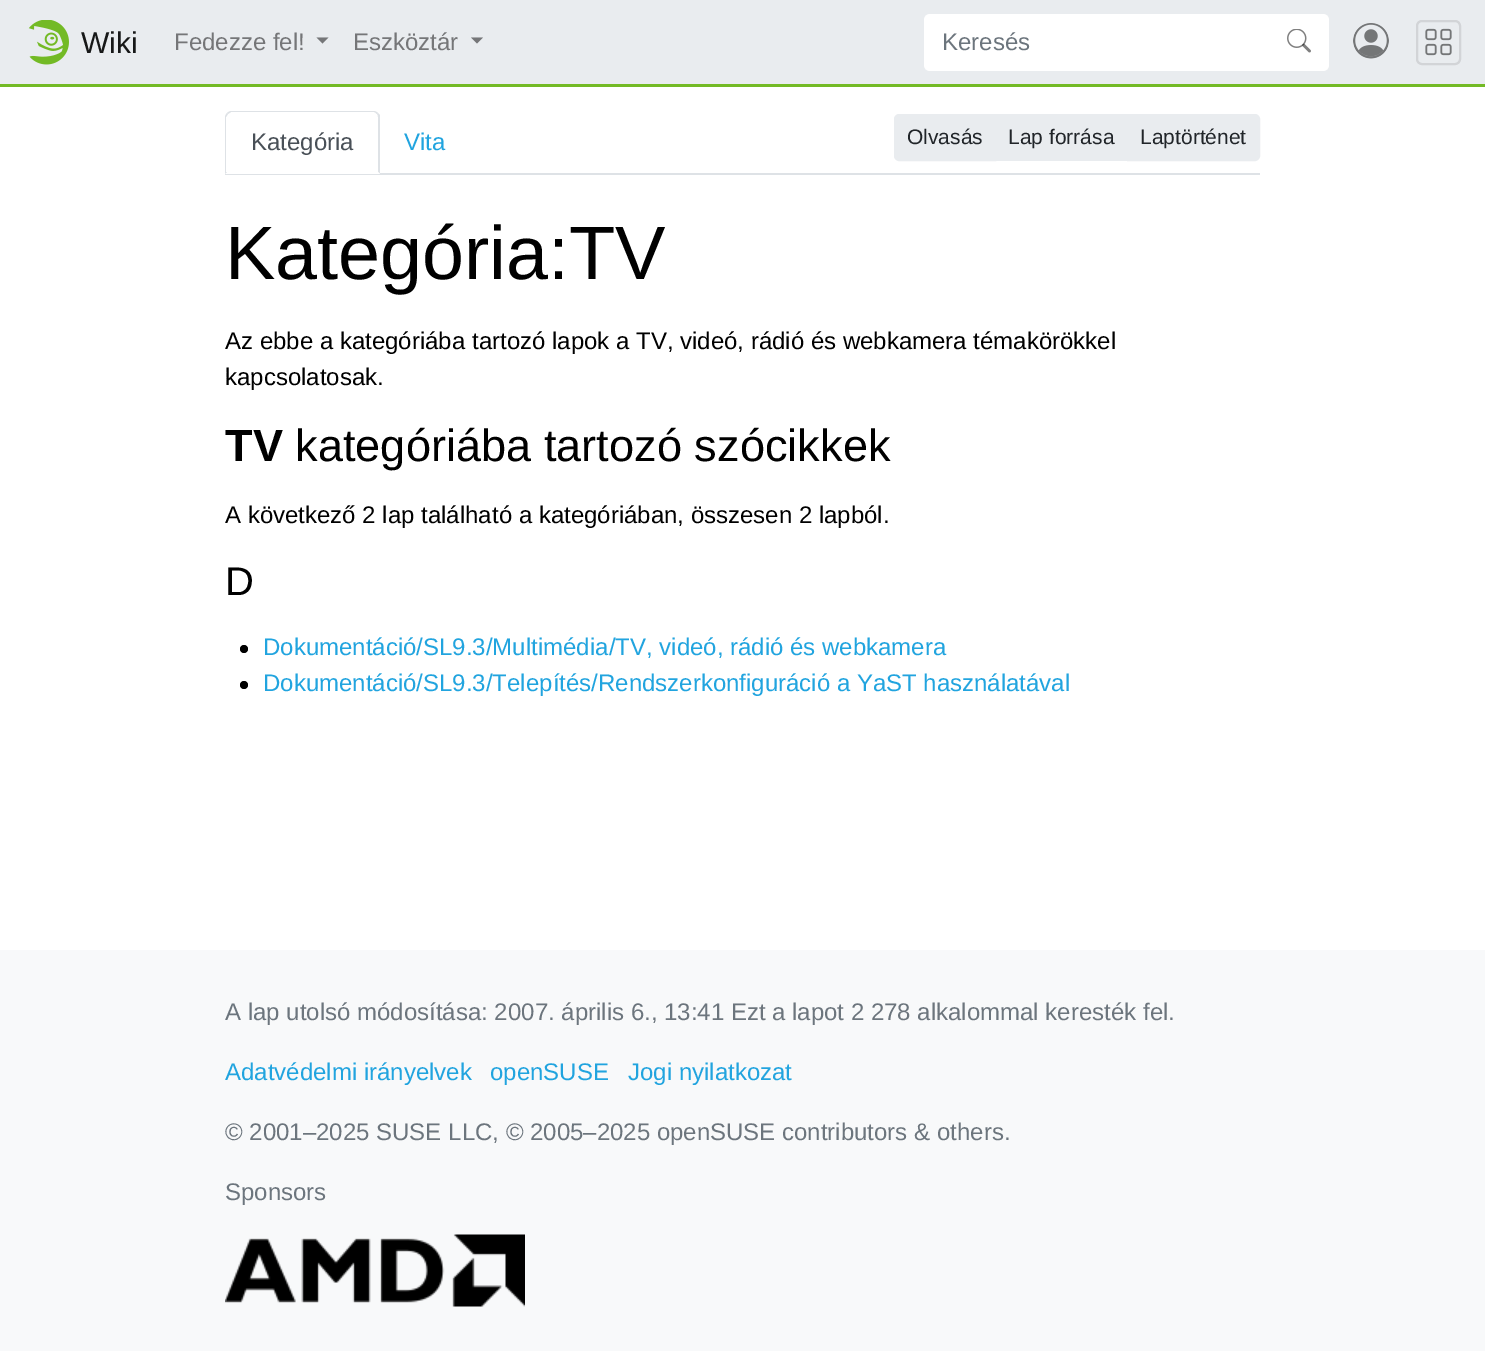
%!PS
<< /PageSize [1485 1351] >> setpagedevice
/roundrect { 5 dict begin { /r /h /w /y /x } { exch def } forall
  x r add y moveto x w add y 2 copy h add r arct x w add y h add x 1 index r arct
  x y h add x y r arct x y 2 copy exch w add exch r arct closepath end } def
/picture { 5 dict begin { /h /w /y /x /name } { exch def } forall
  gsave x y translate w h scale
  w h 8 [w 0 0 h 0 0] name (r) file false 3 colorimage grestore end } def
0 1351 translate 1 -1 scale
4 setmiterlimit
1 setgray
0 0 1485 1351 rectfill
0.914 0.925 0.937 setrgbcolor
0 0 1485 84 rectfill
0.451 0.729 0.145 setrgbcolor
0 84 1485 3 rectfill
(img1.rgb) 28 20 41 45 picture
/LiberationSans-Regular [30 0 0 -30 0 0] selectfont
0.09 0.094 0.094 setrgbcolor
81 53 moveto (Wiki) show
/LiberationSans-Regular [24 0 0 -24 0 0] selectfont
0.459 0.463 0.471 setrgbcolor
174 50 moveto (Fedezze fel!) show
newpath 316.5 37.5 moveto 328.5 37.5 lineto 322.5 43.5 lineto closepath fill
353 50 moveto (Eszköztár) show
newpath 471 37.5 moveto 483 37.5 lineto 477 43.5 lineto closepath fill
1 setgray
newpath 930 14 moveto 1271 14 lineto 1271 71 lineto 930 71 lineto 926.5 71 924 68.5 924 65 curveto 924 20 lineto 924 16.5 926.5 14 930 14 curveto closepath fill
0.424 0.459 0.49 setrgbcolor
942 50 moveto (Keresés) show
1 setgray
newpath 1269 14 moveto 1323 14 lineto 1326.5 14 1329 16.5 1329 20 curveto 1329 65 lineto 1329 68.5 1326.5 71 1323 71 curveto 1269 71 lineto closepath fill
(img2.rgb) 1287 29 24 24 picture
(img3.rgb) 1353 23 36 36 picture
0.824 0.831 0.843 setrgbcolor
2 setlinewidth
1417 21 43 43 5 roundrect stroke
(img4.rgb) 1425 28 27 28 picture
0.871 0.886 0.902 setrgbcolor
225 173 1035 2 rectfill
1 setgray
newpath 231 111 moveto 374 111 lineto 377.5 111 380 113.5 380 117 curveto 380 174 lineto 225 174 lineto 225 117 lineto 225 113.5 227.5 111 231 111 curveto closepath fill
0.871 0.886 0.902 setrgbcolor
newpath 231 111 moveto 230 111 228 112 227 113 curveto 228 114 lineto 231 112 lineto 374 112 lineto 375 112 376 113 377 114 curveto 378 113 lineto 377 112 375 111 374 111 curveto closepath fill
newpath 380 115 moveto 380 174 lineto 378 172 lineto 378 117 lineto 378 116 378 115 377 114 curveto 378 113 lineto closepath fill
1 setgray
newpath 380 174 moveto 378 172 lineto 227 172 lineto 225 174 lineto closepath fill
0.871 0.886 0.902 setrgbcolor
newpath 225 174 moveto 227 172 lineto 226 172 lineto 226 117 lineto 228 114 lineto 227 113 lineto 226 114 225 116 225 117 curveto closepath fill
0.286 0.314 0.341 setrgbcolor
251 150 moveto (Kategória) show
0.129 0.643 0.875 setrgbcolor
404 150 moveto (Vita) show
0.914 0.925 0.937 setrgbcolor
newpath 899 115 moveto 995 115 lineto 995 160 lineto 899 160 lineto 897 160 895 158 895 156 curveto 895 119 lineto 895 117 897 115 899 115 curveto closepath gsave fill grestore
stroke
/LiberationSans-Regular [21 0 0 -21 0 0] selectfont
0.129 0.145 0.161 setrgbcolor
907 144 moveto (Olvasás) show
0.914 0.925 0.937 setrgbcolor
996 114 131 47 rectfill
0.129 0.145 0.161 setrgbcolor
1008 144 moveto (Lap forrása) show
0.914 0.925 0.937 setrgbcolor
newpath 1128 115 moveto 1255 115 lineto 1257 115 1259 117 1259 119 curveto 1259 156 lineto 1259 158 1257 160 1255 160 curveto 1128 160 lineto closepath gsave fill grestore
stroke
0.129 0.145 0.161 setrgbcolor
1140 144 moveto (Laptörténet) show
/LiberationSans-Regular [75.5 0 0 -75.5 0 0] selectfont
0 setgray
225 279 moveto (Kategória:TV) show
/LiberationSans-Regular [24 0 0 -24 0 0] selectfont
225 349 moveto (Az ebbe a kategóriába tartozó lapok a TV, videó, rádió és webkamera témakörökkel) show
225 385 moveto (kapcsolatosak.) show
/LiberationSans-Bold [45.2 0 0 -45.2 0 0] selectfont
225 461 moveto (TV) show
/LiberationSans-Regular [45.2 0 0 -45.2 0 0] selectfont
295 461 moveto (kategóriába tartozó szócikkek) show
/LiberationSans-Regular [24 0 0 -24 0 0] selectfont
225 523 moveto (A következő 2 lap található a kategóriában, összesen 2 lapból.) show
/LiberationSans-Regular [40 0 0 -40 0 0] selectfont
225 595 moveto (D) show
newpath 244 649 4 0 360 arc closepath fill
/LiberationSans-Regular [24 0 0 -24 0 0] selectfont
0.129 0.643 0.875 setrgbcolor
263 655 moveto (Dokumentáció/SL9.3/Multimédia/TV, videó, rádió és webkamera) show
0 setgray
newpath 244 685 4 0 360 arc closepath fill
0.129 0.643 0.875 setrgbcolor
263 691 moveto (Dokumentáció/SL9.3/Telepítés/Rendszerkonfiguráció a YaST használatával) show
0.973 0.976 0.98 setrgbcolor
0 950 1485 401 rectfill
0.424 0.459 0.49 setrgbcolor
225 1020 moveto (A lap utolsó módosítása: 2007. április 6., 13:41 Ezt a lapot 2 278 alkalommal keresték fel.) show
0.129 0.643 0.875 setrgbcolor
225 1080 moveto (Adatvédelmi irányelvek) show
490 1080 moveto (openSUSE) show
628 1080 moveto (Jogi nyilatkozat) show
0.424 0.459 0.49 setrgbcolor
225 1140 moveto (© 2001–2025 SUSE LLC, © 2005–2025 openSUSE contributors & others.) show
225 1200 moveto (Sponsors) show
(img5.rgb) 225 1234 300 73 picture
showpage
